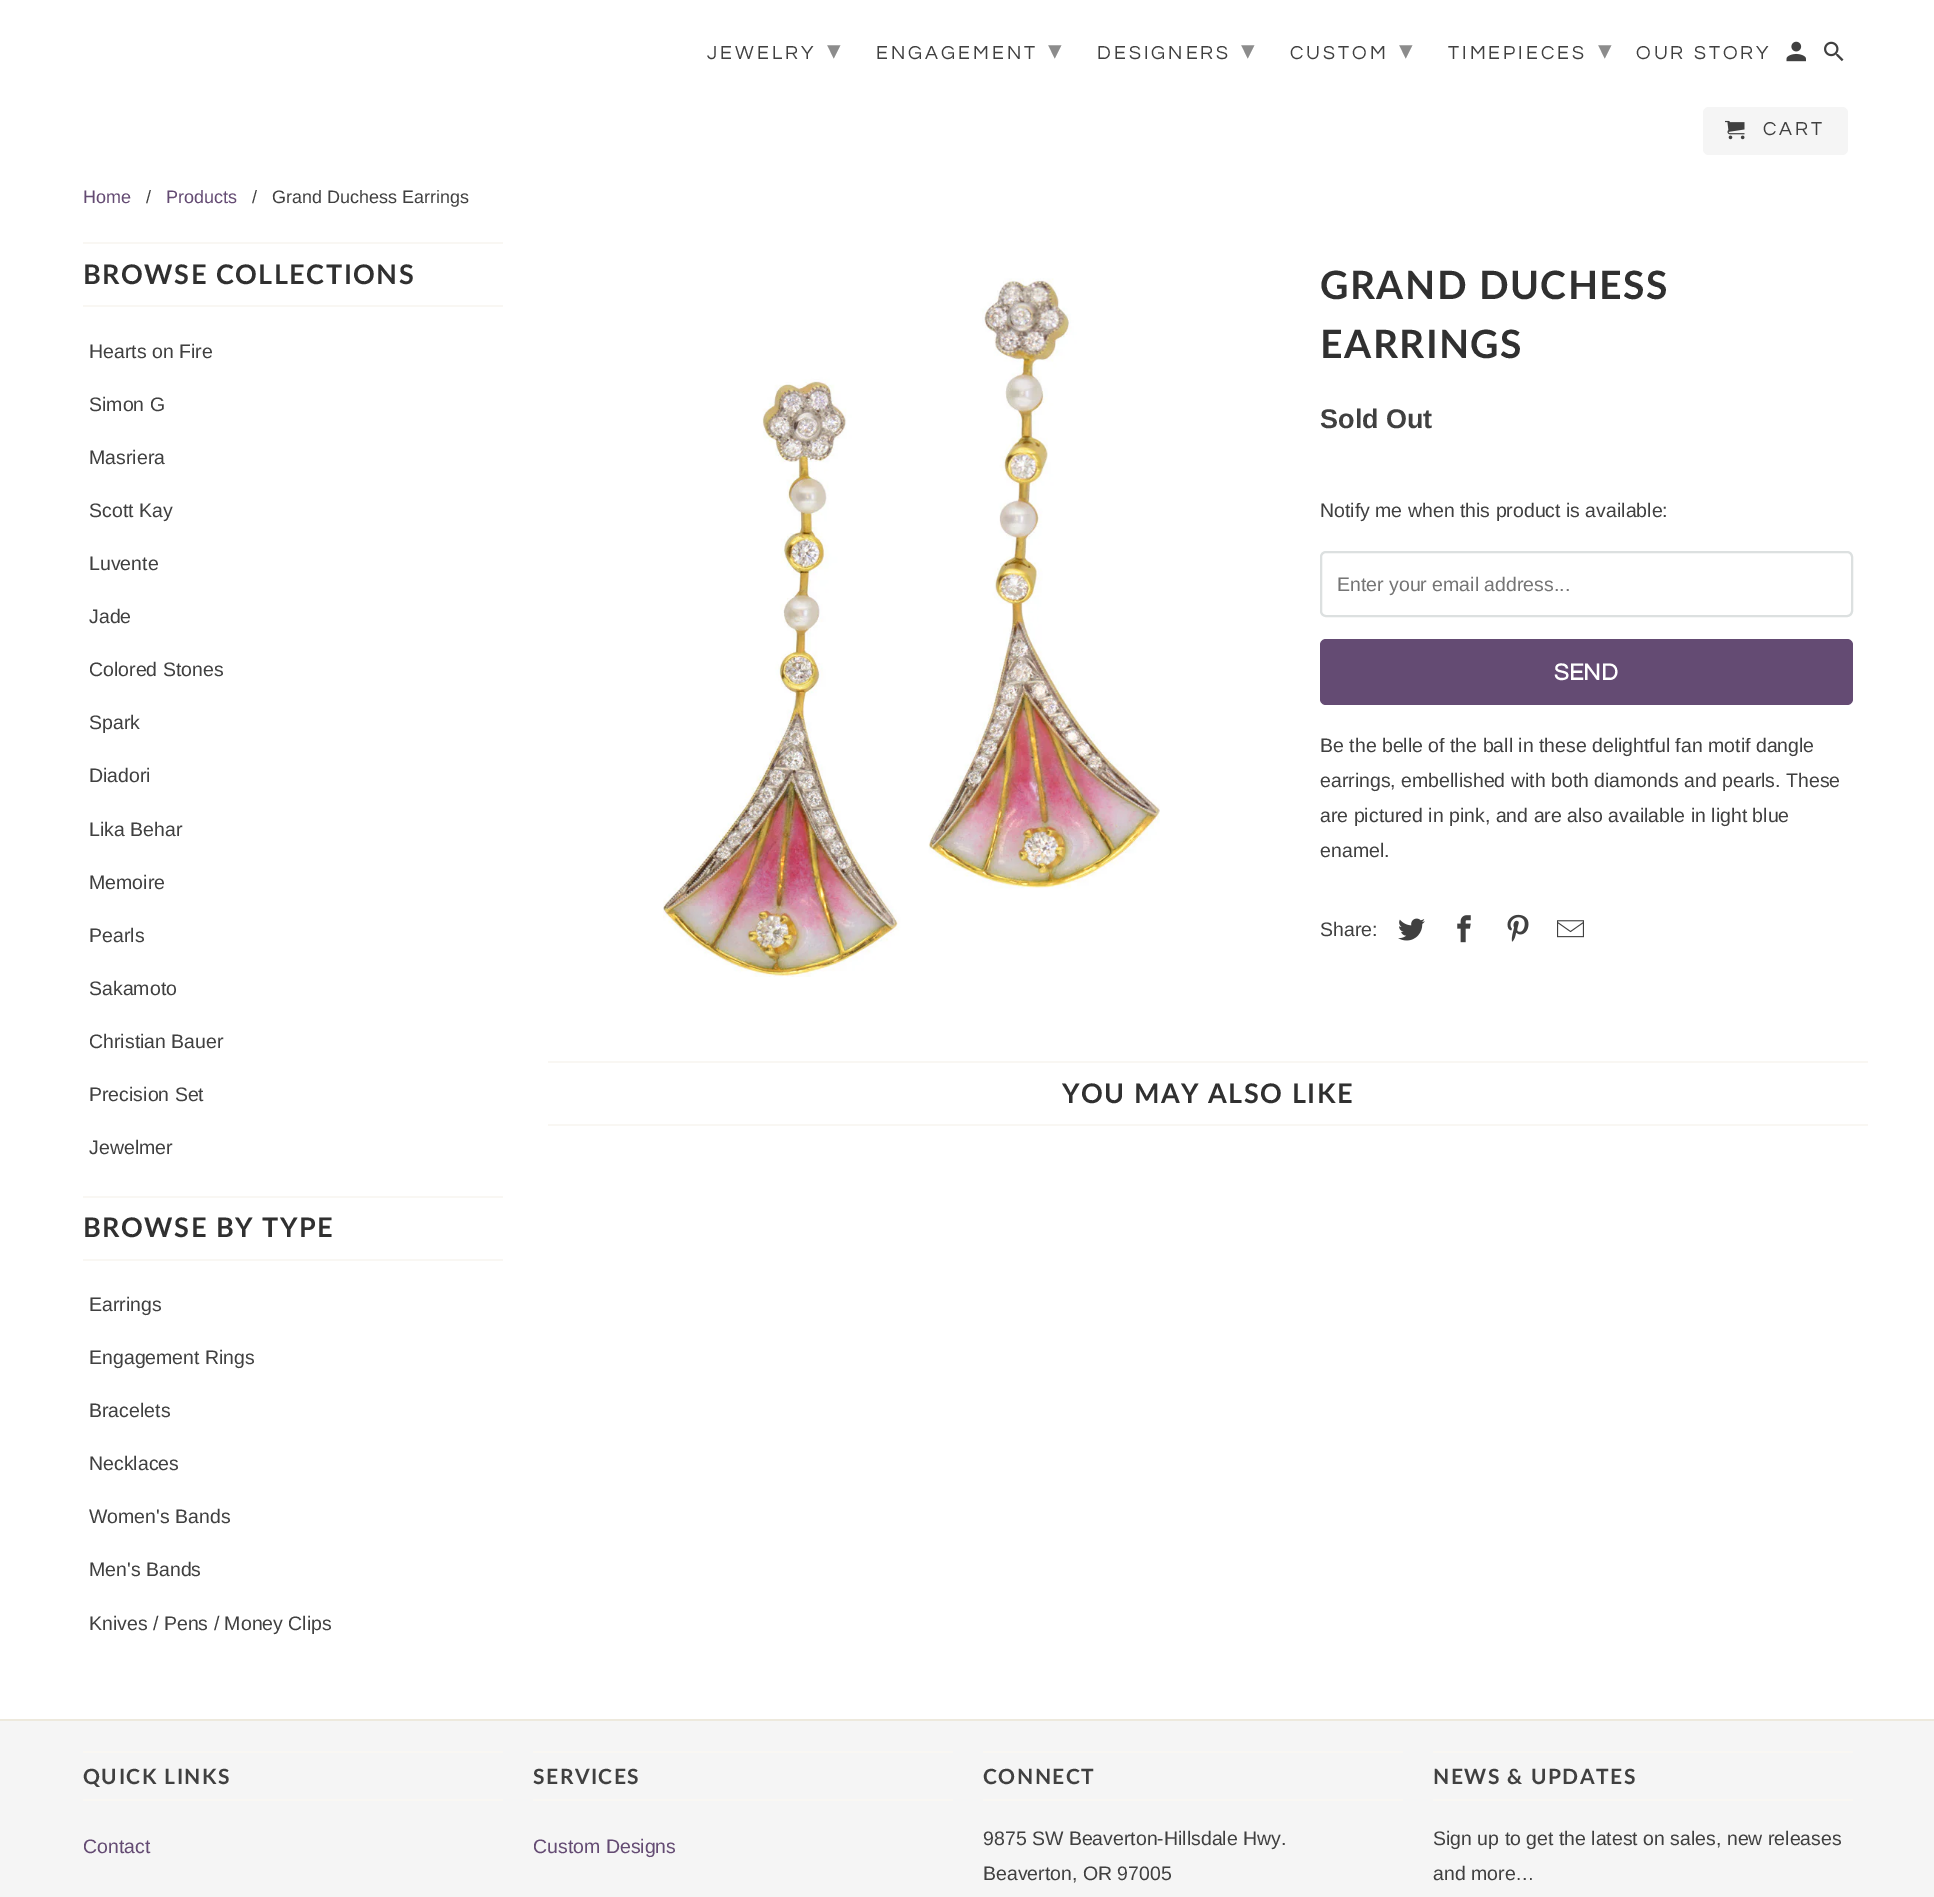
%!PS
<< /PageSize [1934 1897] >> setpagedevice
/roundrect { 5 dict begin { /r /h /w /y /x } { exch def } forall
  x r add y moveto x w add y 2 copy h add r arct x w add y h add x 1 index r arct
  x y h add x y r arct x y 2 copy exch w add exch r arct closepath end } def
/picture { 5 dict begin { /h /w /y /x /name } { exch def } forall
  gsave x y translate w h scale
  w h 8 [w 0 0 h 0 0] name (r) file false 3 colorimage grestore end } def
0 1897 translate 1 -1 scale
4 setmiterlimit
1 setgray
0 0 1934 1897 rectfill
/Questrial-Regular [19.5 0 0 -19.5 0 0] selectfont
0.251 setgray
707 59 moveto 3 0 (JEWELRY) ashow
/DejaVuSans-Regular [27 0 0 -27 0 0] selectfont
0.549 setgray
827 59 moveto 3 0 (▾) ashow
/Questrial-Regular [19.5 0 0 -19.5 0 0] selectfont
0.251 setgray
876 59 moveto 3 0 (ENGAGEMENT) ashow
/DejaVuSans-Regular [27 0 0 -27 0 0] selectfont
0.549 setgray
1048 59 moveto 3 0 (▾) ashow
/Questrial-Regular [19.5 0 0 -19.5 0 0] selectfont
0.251 setgray
1097 59 moveto 3 0 (DESIGNERS) ashow
/DejaVuSans-Regular [27 0 0 -27 0 0] selectfont
0.549 setgray
1241 59 moveto 3 0 (▾) ashow
/Questrial-Regular [19.5 0 0 -19.5 0 0] selectfont
0.251 setgray
1290 59 moveto 3 0 (CUSTOM) ashow
/DejaVuSans-Regular [27 0 0 -27 0 0] selectfont
0.549 setgray
1399 59 moveto 3 0 (▾) ashow
/Questrial-Regular [19.5 0 0 -19.5 0 0] selectfont
0.251 setgray
1448 59 moveto 3 0 (TIMEPIECES) ashow
/DejaVuSans-Regular [27 0 0 -27 0 0] selectfont
0.549 setgray
1598 59 moveto 3 0 (▾) ashow
/Questrial-Regular [19.5 0 0 -19.5 0 0] selectfont
0.251 setgray
1636 59 moveto 3 0 (OUR STORY) ashow
(img1.rgb) 1786 41 20 21 picture
(img2.rgb) 1824 41 20 21 picture
0.961 setgray
1703 107 145 48 6 roundrect fill
(img3.rgb) 1725 120 20 20 picture
0.251 setgray
1763 135 moveto 3 0 (CART) ashow
/LiberationSans-Regular [18 0 0 -18 0 0] selectfont
0.392 0.294 0.451 setrgbcolor
83 203 moveto (Home) show
0.251 setgray
146 203 moveto (/) show
0.392 0.294 0.451 setrgbcolor
166 203 moveto (Products) show
0.251 setgray
252 203 moveto (/) show
272 203 moveto (Grand Duchess Earrings) show
0.976 0.969 0.953 setrgbcolor
83 242 420 2 rectfill
83 305 420 2 rectfill
/Lato-Bold [27 0 0 -27 0 0] selectfont
0.188 setgray
83 284 moveto 1.5 0 (BROWSE COLLECTIONS) ashow
/LiberationSans-Regular [19.5 0 0 -19.5 0 0] selectfont
0.251 setgray
89 358 moveto (Hearts on Fire) show
89 411 moveto (Simon G) show
89 464 moveto (Masriera) show
89 517 moveto (Scott Kay) show
89 570 moveto (Luvente) show
89 623 moveto (Jade) show
89 676 moveto (Colored Stones) show
89 729 moveto (Spark) show
89 782 moveto (Diadori) show
89 836 moveto (Lika Behar) show
89 889 moveto (Memoire) show
89 942 moveto (Pearls) show
89 995 moveto (Sakamoto) show
89 1048 moveto (Christian Bauer) show
89 1101 moveto (Precision Set) show
89 1154 moveto (Jewelmer) show
0.976 0.969 0.953 setrgbcolor
83 1196 420 2 rectfill
83 1259 420 2 rectfill
/Lato-Bold [27 0 0 -27 0 0] selectfont
0.188 setgray
83 1237 moveto 1.5 0 (BROWSE BY TYPE) ashow
/LiberationSans-Regular [19.5 0 0 -19.5 0 0] selectfont
0.251 setgray
89 1311 moveto (Earrings) show
89 1364 moveto (Engagement Rings) show
89 1417 moveto (Bracelets) show
89 1470 moveto (Necklaces) show
89 1523 moveto (Women's Bands) show
89 1576 moveto (Men's Bands) show
89 1630 moveto (Knives / Pens / Money Clips) show
(img4.rgb) 663 278 497 699 picture
/Lato-Bold [39 0 0 -39 0 0] selectfont
0.188 setgray
1320 299 moveto 1.5 0 (GRAND DUCHESS) ashow
1320 358 moveto 1.5 0 (EARRINGS) ashow
/LiberationSans-Bold [27 0 0 -27 0 0] selectfont
0.251 setgray
1320 428 moveto (Sold Out) show
/LiberationSans-Regular [19.5 0 0 -19.5 0 0] selectfont
1320 517 moveto (Notify me when this product is available:) show
0.863 0.878 0.878 setrgbcolor
2 setlinewidth
1321 552 531 64 5 roundrect stroke
0.459 setgray
1337 591 moveto (Enter your email address...) show
0.392 0.294 0.451 setrgbcolor
1320 639 533 66 6 roundrect fill
/Questrial-Bold [24 0 0 -24 0 0] selectfont
1 setgray
1554 680 moveto (SEND) show
/LiberationSans-Regular [19.5 0 0 -19.5 0 0] selectfont
0.251 setgray
1320 752 moveto (Be the belle of the ball in these delightful fan motif dangle) show
1320 787 moveto (earrings, embellished with both diamonds and pearls. These) show
1320 822 moveto (are pictured in pink, and are also available in light blue) show
1320 857 moveto (enamel.) show
1320 936 moveto (Share:) show
(img5.rgb) 1398 918 27 23 picture
(img6.rgb) 1457 915 14 28 picture
(img7.rgb) 1507 914 22 28 picture
(img8.rgb) 1557 920 27 18 picture
0.976 0.969 0.953 setrgbcolor
548 1061 1320 2 rectfill
548 1124 1320 2 rectfill
/Lato-Bold [27 0 0 -27 0 0] selectfont
0.188 setgray
1062 1103 moveto 1.5 0 (YOU MAY ALSO LIKE) ashow
0.961 setgray
0 1721 1934 176 rectfill
0.929 0.914 0.867 setrgbcolor
0 1719 1934 2 rectfill
0.976 0.969 0.953 setrgbcolor
83 1751 420 2 rectfill
83 1799 420 2 rectfill
/Lato-Bold [21 0 0 -21 0 0] selectfont
0.251 setgray
83 1784 moveto 1.5 0 (QUICK LINKS) ashow
/LiberationSans-Regular [19.5 0 0 -19.5 0 0] selectfont
0.392 0.294 0.451 setrgbcolor
83 1853 moveto (Contact) show
0.976 0.969 0.953 setrgbcolor
533 1751 420 2 rectfill
533 1799 420 2 rectfill
/Lato-Bold [21 0 0 -21 0 0] selectfont
0.251 setgray
533 1784 moveto 1.5 0 (SERVICES) ashow
/LiberationSans-Regular [19.5 0 0 -19.5 0 0] selectfont
0.392 0.294 0.451 setrgbcolor
533 1853 moveto (Custom Designs) show
0.976 0.969 0.953 setrgbcolor
983 1751 420 2 rectfill
983 1799 420 2 rectfill
/Lato-Bold [21 0 0 -21 0 0] selectfont
0.251 setgray
983 1784 moveto 1.5 0 (CONNECT) ashow
/LiberationSans-Regular [19.5 0 0 -19.5 0 0] selectfont
983 1845 moveto (9875 SW Beaverton-Hillsdale Hwy.) show
983 1880 moveto (Beaverton, OR 97005) show
0.976 0.969 0.953 setrgbcolor
1433 1751 420 2 rectfill
1433 1799 420 2 rectfill
/Lato-Bold [21 0 0 -21 0 0] selectfont
0.251 setgray
1433 1784 moveto 1.5 0 (NEWS & UPDATES) ashow
/LiberationSans-Regular [19.5 0 0 -19.5 0 0] selectfont
1433 1845 moveto (Sign up to get the latest on sales, new releases) show
1433 1880 moveto (and more…) show
showpage
